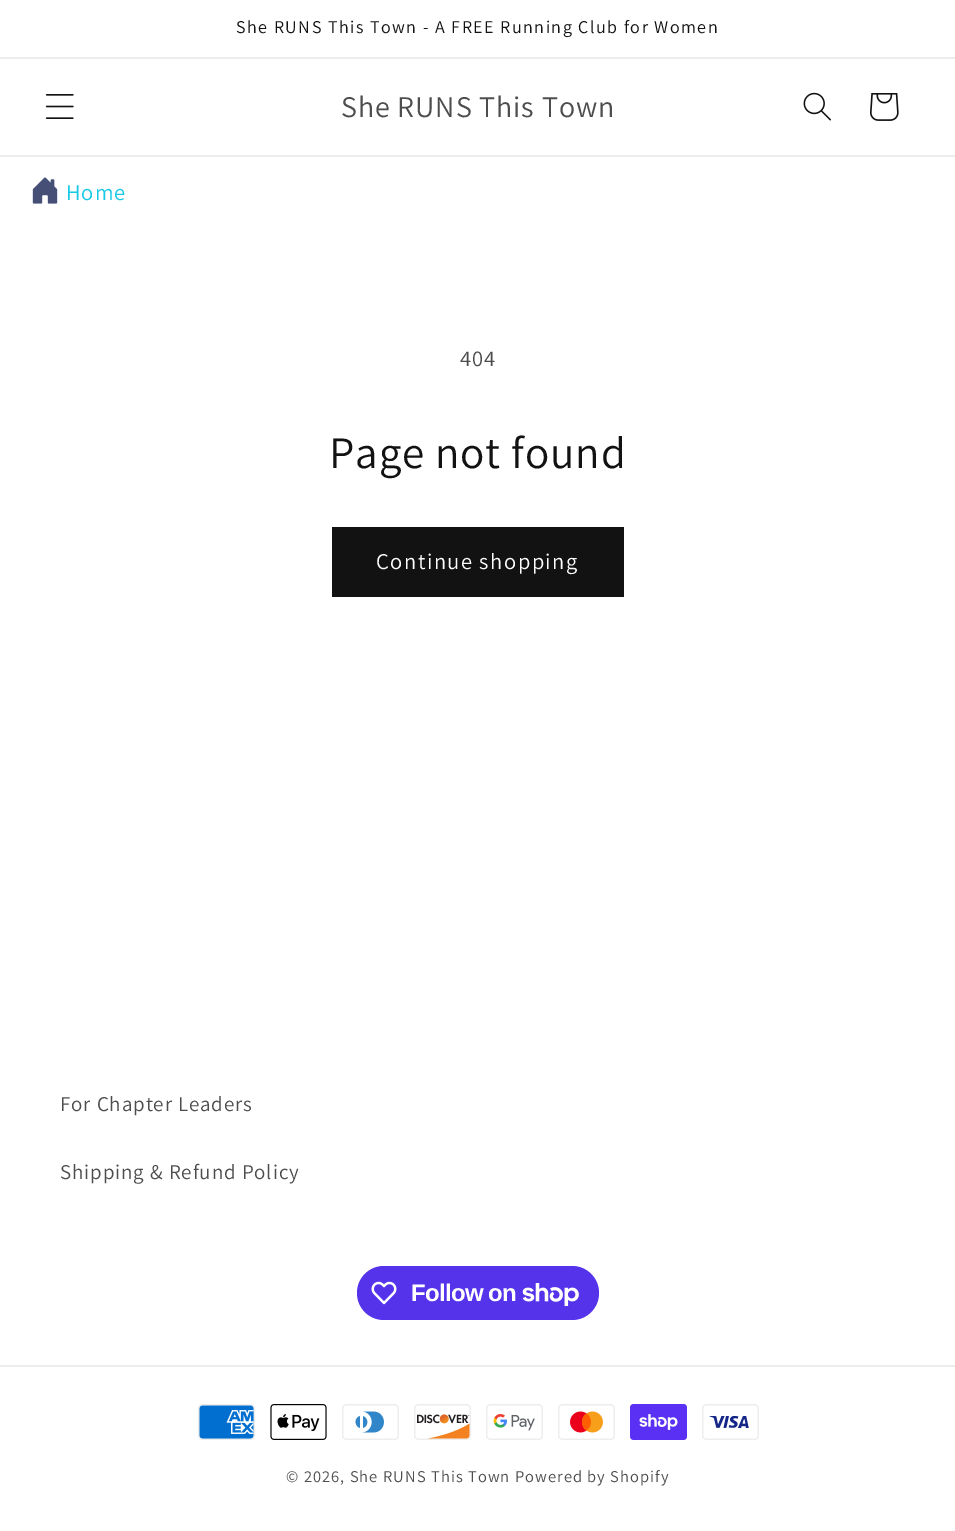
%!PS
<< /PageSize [955 1531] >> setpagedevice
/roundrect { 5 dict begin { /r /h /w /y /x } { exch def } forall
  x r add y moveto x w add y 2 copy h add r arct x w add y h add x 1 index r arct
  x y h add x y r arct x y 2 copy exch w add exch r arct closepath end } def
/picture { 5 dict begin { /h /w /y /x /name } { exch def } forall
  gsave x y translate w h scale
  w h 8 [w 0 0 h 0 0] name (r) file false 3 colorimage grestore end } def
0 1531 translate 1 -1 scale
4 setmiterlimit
1 setgray
0 0 955 1531 rectfill
0.925 setgray
0 57 955 2 rectfill
/Assistant-Regular [18 0 0 -18 0 0] selectfont
0.071 setgray
236 33 moveto 1.5 0 (She RUNS This Town - A FREE Running Club for Women) ashow
0.925 setgray
0 155 955 2 rectfill
(img1.rgb) 45 94 29 25 picture
/Assistant-Regular [30 0 0 -30 0 0] selectfont
0.302 setgray
341 117 moveto 0.9 0 (She RUNS This Town) ashow
(img2.rgb) 803 92 28 29 picture
(img3.rgb) 870 93 29 28 picture
(img4.rgb) 32 177 26 27 picture
/Assistant-Regular [22.5 0 0 -22.5 0 0] selectfont
0.094 0.788 0.906 setrgbcolor
66 200 moveto 0.9 0 (Home) ashow
0.302 setgray
460 366 moveto 0.9 0 (404) ashow
/Assistant-Regular [45 0 0 -45 0 0] selectfont
0.071 setgray
329 468 moveto 0.9 0 (Page not found) ashow
332 527 292 70 rectfill
/Assistant-Regular [22.5 0 0 -22.5 0 0] selectfont
1 setgray
376 569 moveto 1.5 0 (Continue shopping) ashow
/Assistant-Regular [21 0 0 -21 0 0] selectfont
0.302 setgray
60 1111 moveto 0.9 0 (For Chapter Leaders) ashow
60 1179 moveto 0.9 0 (Shipping & Refund Policy) ashow
0.329 0.2 0.922 setrgbcolor
357 1266 242 54 27 roundrect fill
(img5.rgb) 371 1281 26 24 picture
/LiberationSans-Bold [24 0 0 -24 0 0] selectfont
1 setgray
411 1301 moveto -0.75 0 (Follow on) ashow
(img6.rgb) 522 1283 57 23 picture
0.925 setgray
0 1365 955 2 rectfill
(img7.rgb) 198 1404 57 36 picture
(img8.rgb) 270 1404 57 36 picture
(img9.rgb) 342 1404 57 36 picture
(img10.rgb) 414 1404 57 36 picture
(img11.rgb) 486 1404 57 36 picture
(img12.rgb) 558 1404 57 36 picture
(img13.rgb) 630 1404 57 36 picture
(img14.rgb) 702 1404 57 36 picture
/Assistant-Regular [16.5 0 0 -16.5 0 0] selectfont
0.302 setgray
286 1482 moveto 1.05 0 (© 2026, She RUNS This Town Powered by Shopify) ashow
showpage
